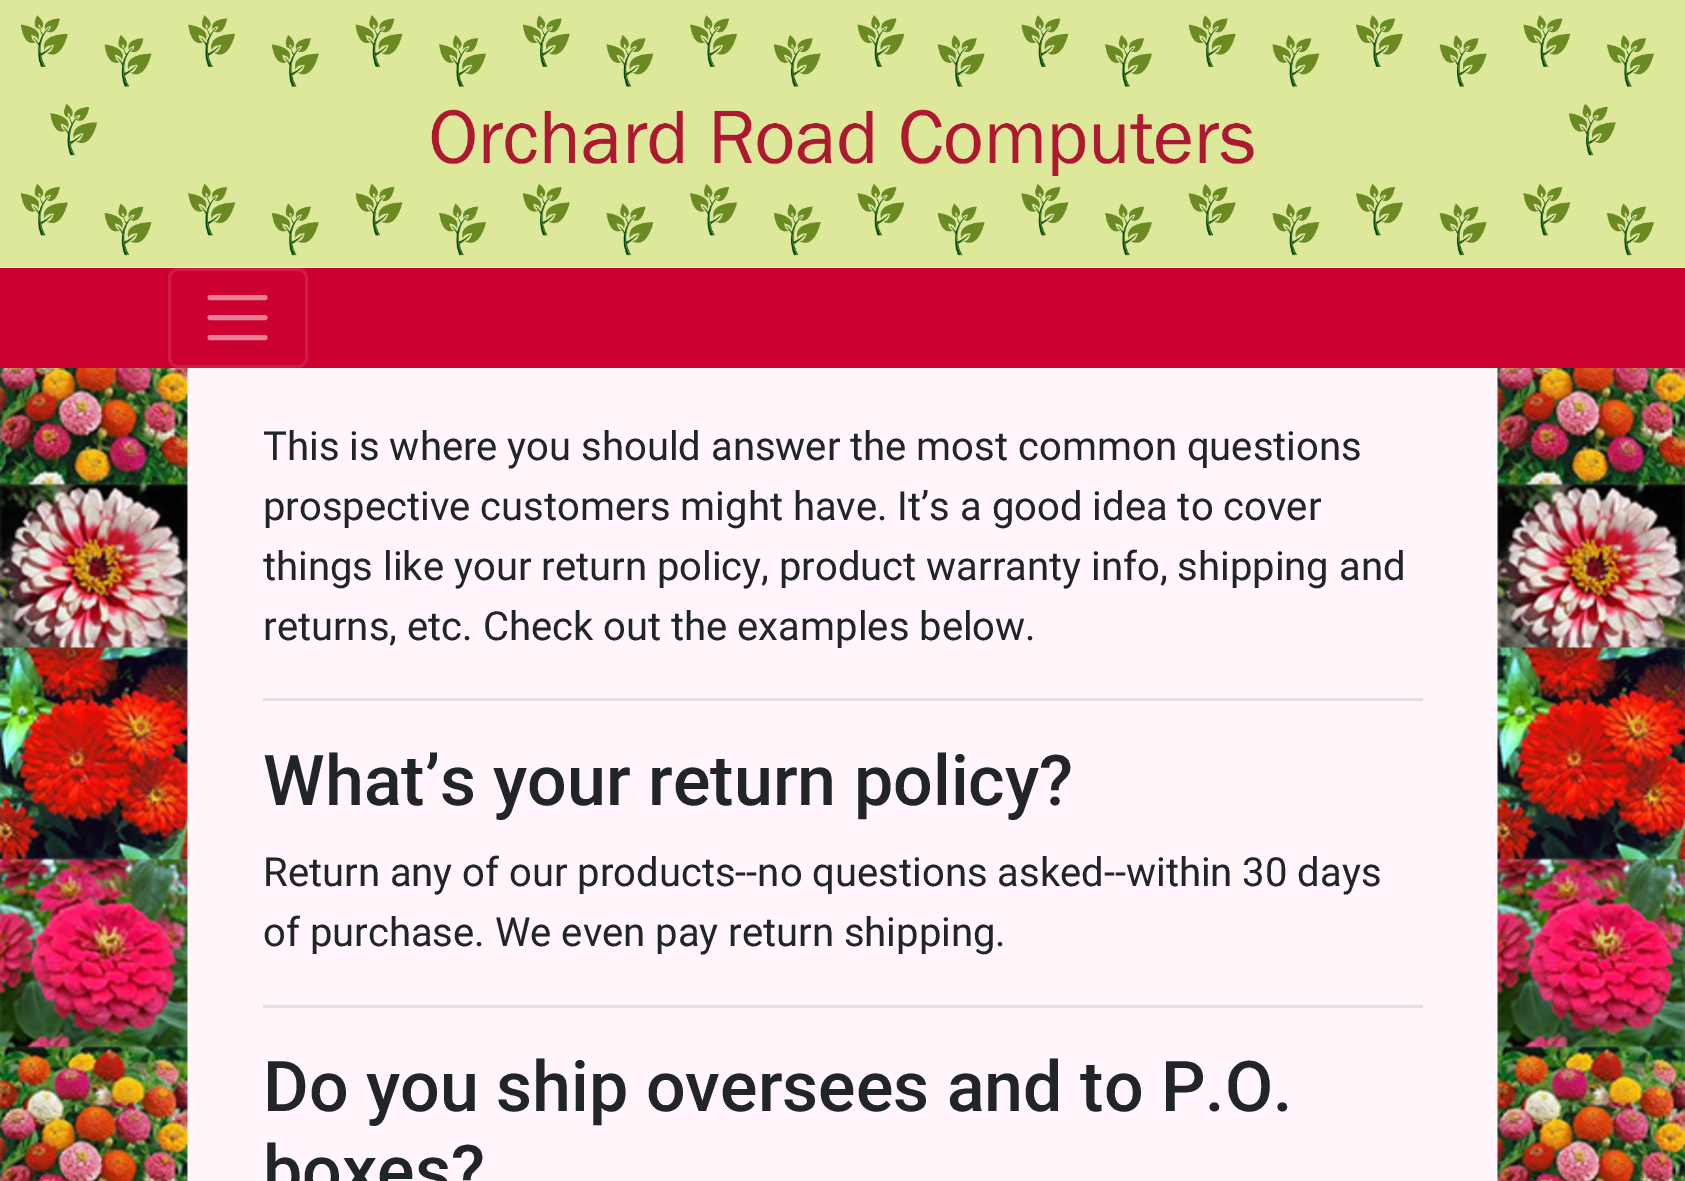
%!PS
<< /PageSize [1685 1181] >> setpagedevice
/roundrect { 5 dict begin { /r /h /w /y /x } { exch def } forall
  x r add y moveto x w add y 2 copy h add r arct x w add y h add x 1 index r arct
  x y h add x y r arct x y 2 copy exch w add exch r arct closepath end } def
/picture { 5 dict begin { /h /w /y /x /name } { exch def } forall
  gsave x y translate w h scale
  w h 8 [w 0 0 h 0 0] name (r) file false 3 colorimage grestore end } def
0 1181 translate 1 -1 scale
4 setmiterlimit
1 setgray
0 0 1685 1181 rectfill
(img1.rgb) 0 0 1685 268 picture
0.8 0 0.2 setrgbcolor
0 268 1685 100 rectfill
0.82 0.102 0.278 setrgbcolor
3 setlinewidth
169.5 269.5 137 97 8.5 roundrect stroke
0.902 0.502 0.6 setrgbcolor
5 setlinewidth
1 setlinecap
newpath 210 297.5 moveto 265 297.5 lineto 210 317.5 moveto 265 317.5 lineto 210 337.5 moveto 265 337.5 lineto stroke
1 0.961 0.98 setrgbcolor
187 368 1311 813 rectfill
(img2.rgb) 0 368 1685 813 picture
/Roboto-Regular [40 0 0 -40 0 0] selectfont
0.129 0.145 0.161 setrgbcolor
263 460 moveto (This is where you should answer the most common questions) show
263 520 moveto (prospective customers might have. It’s a good idea to cover) show
263 580 moveto (things like your return policy, product warranty info, shipping and) show
263 640 moveto (returns, etc. Check out the examples below.) show
0.902 0.867 0.882 setrgbcolor
263 698 1160 3 rectfill
/Roboto-Medium [70 0 0 -70 0 0] selectfont
0.129 0.145 0.161 setrgbcolor
263 805 moveto (What’s your return policy?) show
/Roboto-Regular [40 0 0 -40 0 0] selectfont
263 886 moveto (Return any of our products--no questions asked--within 30 days) show
263 946 moveto (of purchase. We even pay return shipping.) show
0.902 0.867 0.882 setrgbcolor
263 1005 1160 3 rectfill
/Roboto-Medium [70 0 0 -70 0 0] selectfont
0.129 0.145 0.161 setrgbcolor
263 1111 moveto (Do you ship oversees and to P.O.) show
263 1195 moveto (boxes?) show
showpage
